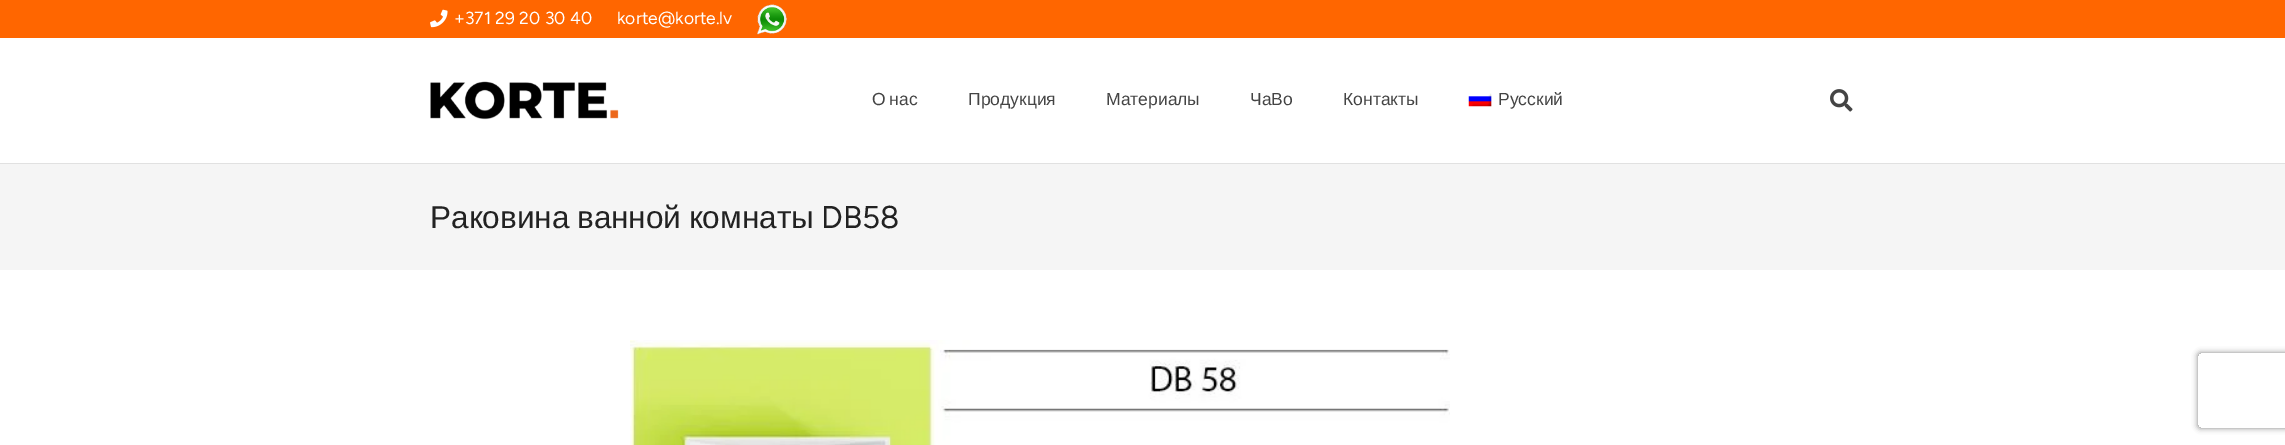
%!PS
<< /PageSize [2285 445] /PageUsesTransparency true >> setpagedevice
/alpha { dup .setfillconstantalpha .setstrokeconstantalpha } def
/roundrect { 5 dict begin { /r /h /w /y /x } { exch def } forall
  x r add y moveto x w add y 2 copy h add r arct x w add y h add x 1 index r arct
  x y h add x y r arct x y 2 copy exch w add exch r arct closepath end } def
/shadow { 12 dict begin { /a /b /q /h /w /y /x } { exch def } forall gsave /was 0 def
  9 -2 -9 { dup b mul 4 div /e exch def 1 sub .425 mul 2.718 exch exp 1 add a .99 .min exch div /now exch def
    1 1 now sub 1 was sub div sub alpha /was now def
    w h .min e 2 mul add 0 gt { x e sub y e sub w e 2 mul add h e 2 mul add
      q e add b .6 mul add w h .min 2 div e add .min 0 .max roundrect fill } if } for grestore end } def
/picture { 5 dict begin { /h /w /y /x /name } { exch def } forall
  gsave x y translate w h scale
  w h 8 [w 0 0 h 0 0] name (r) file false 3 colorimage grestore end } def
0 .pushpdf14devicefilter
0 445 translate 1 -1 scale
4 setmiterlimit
1 setgray
0 0 2285 445 rectfill
1 0.4 0 setrgbcolor
0 0 2285 38 rectfill
(img1.rgb) 430 9 18 19 picture
/Figtree-Regular [17.5 0 0 -17.5 0 0] selectfont
1 setgray
454 24 moveto (+371 29 20 30 40) show
617 24 moveto (korte@korte.lv) show
(img2.rgb) 757 4 30 31 picture
0.882 setgray
0 163 2285 1 rectfill
(img3.rgb) 430 81 189 39 picture
/LiberationSans-Regular [17.5 0 0 -17.5 0 0] selectfont
0.267 setgray
872 105 moveto -1 0 32 (О нас) widthshow
968 105 moveto (Продукция) show
1106 105 moveto (Материалы) show
1250 105 moveto (ЧаВо) show
1343 105 moveto (Контакты) show
(img4.rgb) 1468 93 24 14 picture
1498 105 moveto (Русский) show
(img5.rgb) 1830 89 23 23 picture
0.961 setgray
0 164 2285 106 rectfill
/LiberationSans-Regular [31.5 0 0 -31.5 0 0] selectfont
0.133 setgray
430 228 moveto -1 0 32 (Раковина ванной комнаты) widthshow
/Figtree-Regular [31.5 0 0 -31.5 0 0] selectfont
821 228 moveto (DB58) show
(img6.rgb) 630 340 820 105 picture
gsave
newpath 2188 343 moveto 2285 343 lineto 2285 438 lineto 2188 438 lineto closepath 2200.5 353 moveto 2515.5 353 lineto 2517 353 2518 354 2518 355.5 curveto 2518 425.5 lineto 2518 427 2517 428 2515.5 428 curveto 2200.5 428 lineto 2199 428 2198 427 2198 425.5 curveto 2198 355.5 lineto 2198 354 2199 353 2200.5 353 curveto closepath eoclip newpath
0.502 setgray
2198 353 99 75 2.5 3 1 shadow
grestore
.poppdf14devicefilter showpage
